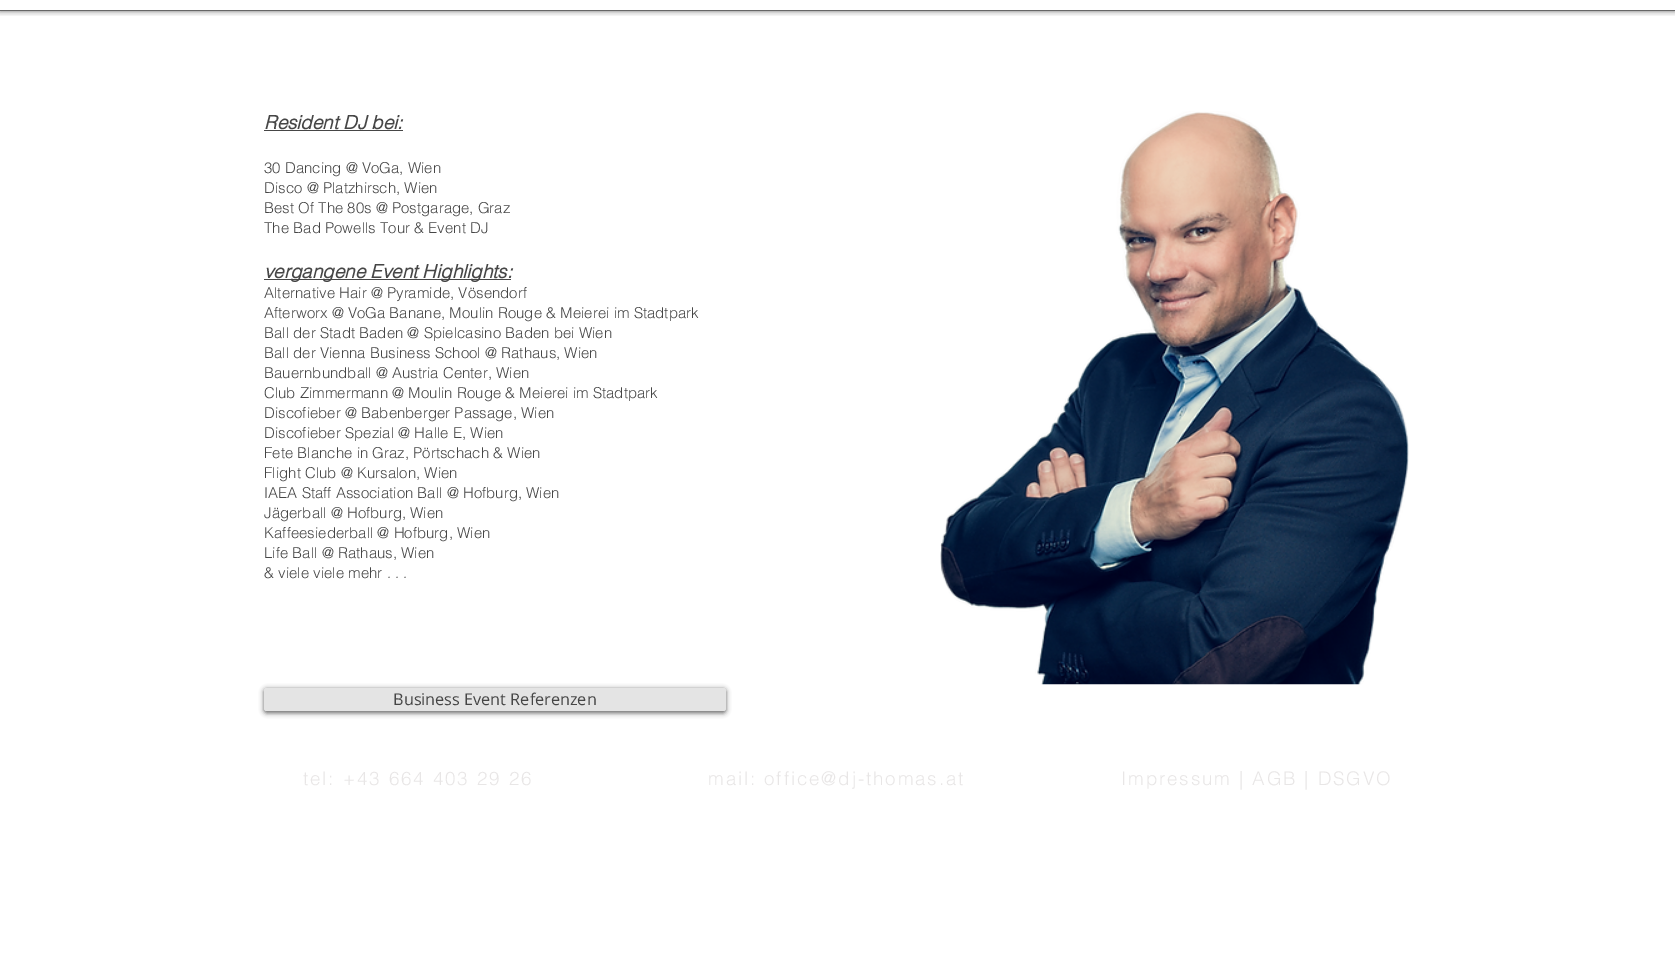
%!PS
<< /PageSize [1675 953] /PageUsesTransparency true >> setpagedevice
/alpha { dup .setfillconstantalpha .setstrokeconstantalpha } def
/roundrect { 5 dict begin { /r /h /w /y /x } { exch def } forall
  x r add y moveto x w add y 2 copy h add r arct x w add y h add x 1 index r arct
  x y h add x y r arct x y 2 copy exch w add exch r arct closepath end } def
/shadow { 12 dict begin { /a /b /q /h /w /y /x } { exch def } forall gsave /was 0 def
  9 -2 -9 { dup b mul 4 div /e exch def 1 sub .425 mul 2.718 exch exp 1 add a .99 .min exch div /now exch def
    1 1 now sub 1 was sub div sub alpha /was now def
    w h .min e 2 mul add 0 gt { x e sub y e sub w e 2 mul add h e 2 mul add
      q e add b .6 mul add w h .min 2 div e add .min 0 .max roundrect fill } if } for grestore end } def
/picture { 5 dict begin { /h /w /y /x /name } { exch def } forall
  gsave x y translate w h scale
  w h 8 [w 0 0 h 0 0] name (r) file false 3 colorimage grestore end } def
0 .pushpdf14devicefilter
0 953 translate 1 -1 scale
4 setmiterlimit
1 setgray
0 0 1675 953 rectfill
gsave
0 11 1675 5 rectclip
0 setgray
0 -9 1675 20 0 3 0.6 shadow
grestore
0.4 setgray
0 10 1675 1 rectfill
/helvetica-BoldItalic [18.75 0 0 -18.75 0 0] selectfont
0.275 setgray
264 129 moveto (Resident DJ bei:) show
264 130 139 1 rectfill
/helvetica-Light [15 0 0 -15 0 0] selectfont
264 173 moveto (30 Dancing @ VoGa, Wien) show
264 193 moveto (Disco @ Platzhirsch, Wien) show
264 213 moveto (Best Of The 80s @ Postgarage, Graz) show
264 233 moveto (The Bad Powells Tour & Event DJ) show
264 279 247 1 rectfill
/helvetica-BoldItalic [18.75 0 0 -18.75 0 0] selectfont
264 278 moveto (vergangene Event Highlights:) show
/helvetica-Light [15 0 0 -15 0 0] selectfont
264 298 moveto (Alternative Hair @ Pyramide, Vösendorf) show
264 318 moveto (Afterworx @ VoGa Banane, Moulin Rouge & Meierei im Stadtpark) show
264 338 moveto (Ball der Stadt Baden @ Spielcasino Baden bei Wien) show
264 358 moveto (Ball der Vienna Business School @ Rathaus, Wien) show
264 378 moveto (Bauernbundball @ Austria Center, Wien) show
264 398 moveto (Club Zimmermann @ Moulin Rouge & Meierei im Stadtpark) show
264 418 moveto (Discofieber @ Babenberger Passage, Wien) show
264 438 moveto (Discofieber Spezial @ Halle E, Wien) show
264 458 moveto (Fete Blanche in Graz, Pörtschach & Wien) show
264 478 moveto (Flight Club @ Kursalon, Wien) show
264 498 moveto (IAEA Staff Association Ball @ Hofburg, Wien) show
264 518 moveto (Jägerball @ Hofburg, Wien) show
264 538 moveto (Kaffeesiederball @ Hofburg, Wien) show
264 558 moveto (Life Ball @ Rathaus, Wien) show
264 578 moveto (& viele viele mehr . . .) show
(img1.rgb) 940 111 469 574 picture
0 setgray
264 689 462 24 2.5 2.5 0.6 shadow
0.894 setgray
264 688 462 23 2.5 roundrect fill
/OpenSans-Regular [16.25 0 0 -16.25 0 0] selectfont
0.275 setgray
393 705 moveto (Business Event Referenzen) show
/helvetica-Light [18.75 0 0 -18.75 0 0] selectfont
0.91 0.902 0.902 setrgbcolor
303 785 moveto 1.9 0 (tel: +43 664 403 29 26) ashow
708 785 moveto 1.9 0 (mail: office@dj-thomas.at) ashow
1121 785 moveto 1.9 0 (Impressum | AGB | DSGVO) ashow
.poppdf14devicefilter showpage
